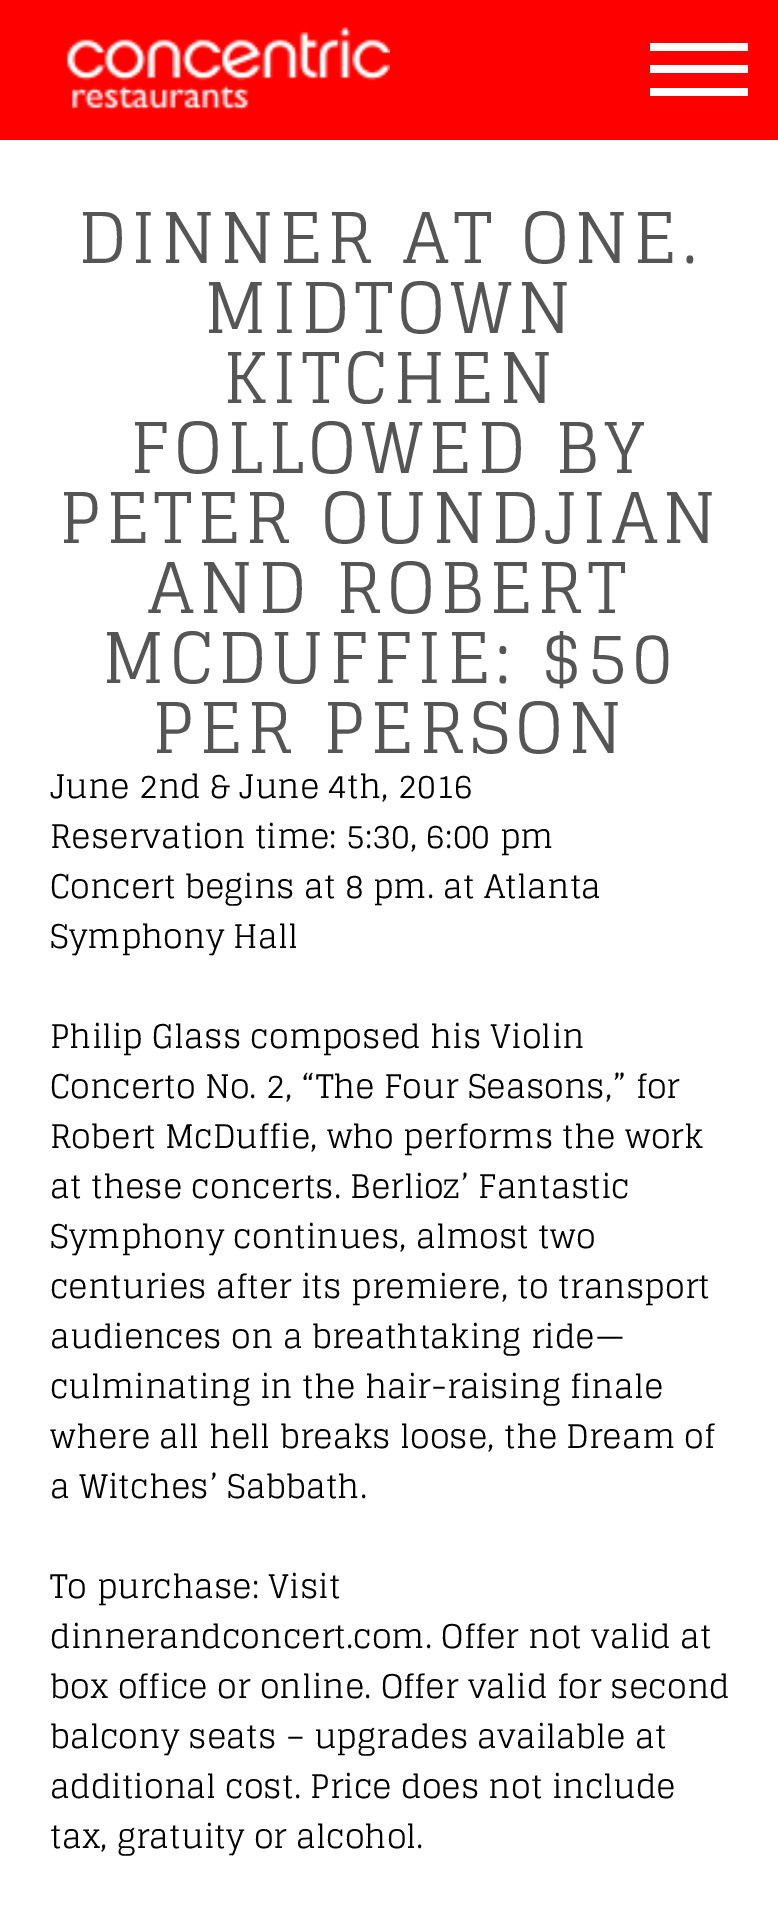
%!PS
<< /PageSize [778 1907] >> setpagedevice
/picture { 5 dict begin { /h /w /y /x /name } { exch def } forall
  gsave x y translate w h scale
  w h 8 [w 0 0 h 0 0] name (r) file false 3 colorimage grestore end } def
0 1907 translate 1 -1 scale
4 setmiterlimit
1 setgray
0 0 778 1907 rectfill
0.996 0 0 setrgbcolor
0 0 778 140 rectfill
(img1.rgb) 66 27 324 83 picture
1 setgray
650 43 98 8 rectfill
650 65 98 8 rectfill
650 88 98 8 rectfill
/Glegoo-Regular [70 0 0 -70 0 0] selectfont
0.333 setgray
78 263 moveto 5 0 (DINNER AT ONE.) ashow
204 333 moveto 5 0 (MIDTOWN) ashow
223 403 moveto 5 0 (KITCHEN) ashow
130 473 moveto 5 0 (FOLLOWED BY) ashow
59 543 moveto 5 0 (PETER OUNDJIAN) ashow
148 613 moveto 5 0 (AND ROBERT) ashow
102 683 moveto 5 0 (MCDUFFIE: $50) ashow
152 753 moveto 5 0 (PER PERSON) ashow
/Glegoo-Regular [32.5 0 0 -32.5 0 0] selectfont
0 setgray
50 798 moveto (June 2nd & June 4th, 2016) show
50 848 moveto (Reservation time: 5:30, 6:00 pm) show
50 898 moveto (Concert begins at 8 pm. at Atlanta) show
50 948 moveto (Symphony Hall) show
50 1048 moveto (Philip Glass composed his Violin) show
50 1098 moveto (Concerto No. 2, “The Four Seasons,” for) show
50 1148 moveto (Robert McDuffie, who performs the work) show
50 1198 moveto (at these concerts. Berlioz’ Fantastic) show
50 1248 moveto (Symphony continues, almost two) show
50 1298 moveto (centuries after its premiere, to transport) show
50 1348 moveto (audiences on a breathtaking ride—) show
50 1398 moveto (culminating in the hair-raising finale) show
50 1448 moveto (where all hell breaks loose, the Dream of) show
50 1498 moveto (a Witches’ Sabbath.) show
50 1598 moveto (To purchase: Visit) show
50 1648 moveto (dinnerandconcert.com. Offer not valid at) show
50 1698 moveto (box office or online. Offer valid for second) show
50 1748 moveto (balcony seats – upgrades available at) show
50 1798 moveto (additional cost. Price does not include) show
50 1848 moveto (tax, gratuity or alcohol.) show
showpage
